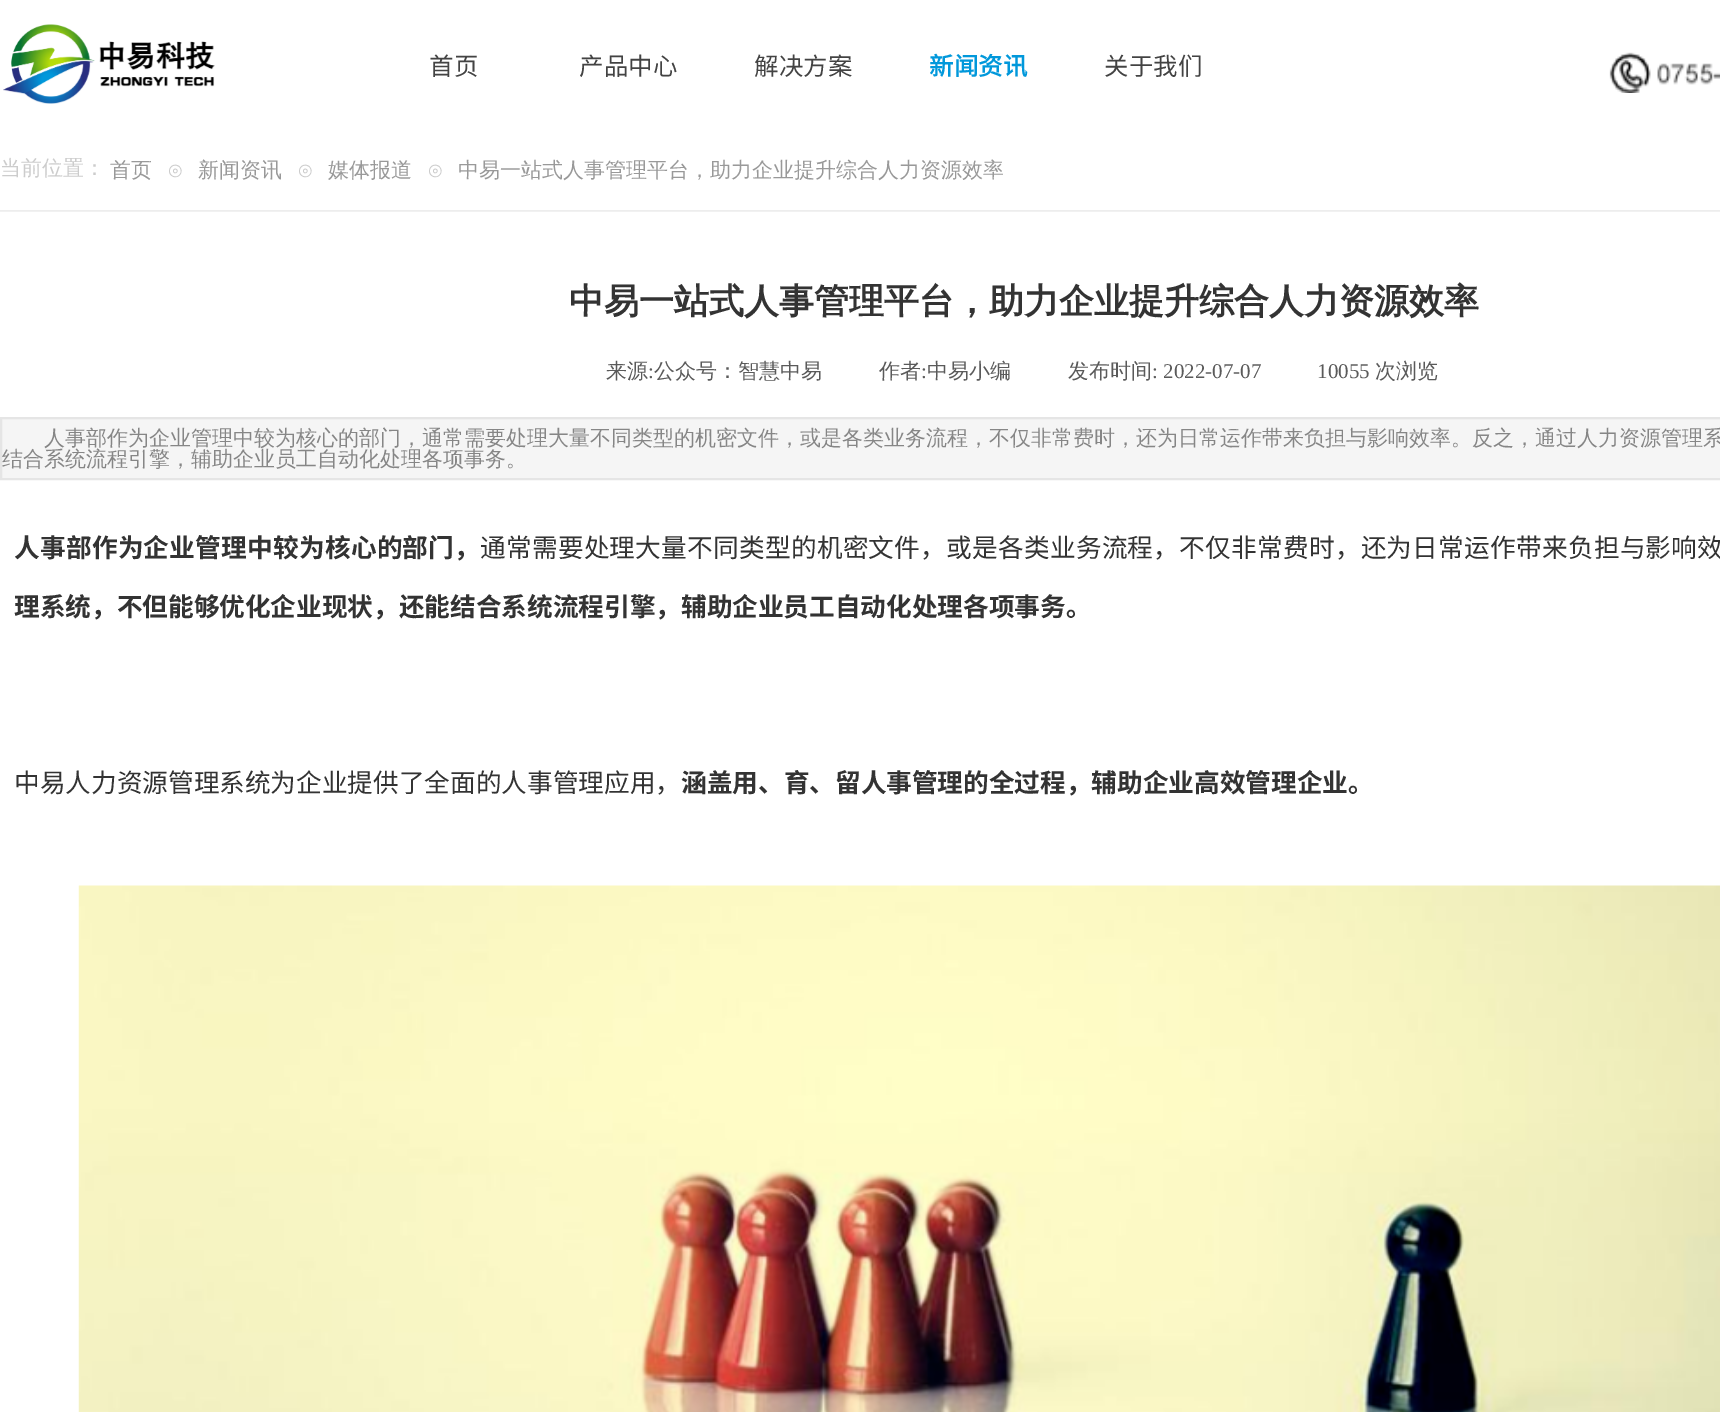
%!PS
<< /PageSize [1720 1412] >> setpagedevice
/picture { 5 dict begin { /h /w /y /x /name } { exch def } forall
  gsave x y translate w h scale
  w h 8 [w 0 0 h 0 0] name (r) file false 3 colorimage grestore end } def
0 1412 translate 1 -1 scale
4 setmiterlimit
1 setgray
0 0 1720 1412 rectfill
(img1.rgb) 3 24 212 80 picture
/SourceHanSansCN-Regular [24.5 0 0 -24.5 0 0] selectfont
0.263 setgray
429 75 moveto (首页) show
579 75 moveto (产品中心) show
754 75 moveto (解决方案) show
/SourceHanSansCN-Bold [24.5 0 0 -24.5 0 0] selectfont
0.004 0.596 0.859 setrgbcolor
929 75 moveto (新闻资讯) show
/SourceHanSansCN-Regular [24.5 0 0 -24.5 0 0] selectfont
0.263 setgray
1104 75 moveto (关于我们) show
(img2.rgb) 1609 52 111 41 picture
/WenQuanYiZenHei-Medium [21 0 0 -21 0 0] selectfont
0.8 setgray
0 175 moveto (当前位置：) show
0.6 setgray
110 177 moveto (首页) show
0.8 setgray
167 177 moveto (⊙) show
0.6 setgray
198 177 moveto (新闻资讯) show
0.8 setgray
297 177 moveto (⊙) show
0.6 setgray
328 177 moveto (媒体报道) show
0.8 setgray
427 177 moveto (⊙) show
0.6 setgray
458 177 moveto (中易一站式人事管理平台，助力企业提升综合人力资源效率) show
(img3.rgb) 0 210 1720 2 picture
/WenQuanYiZenHei-Bold [35 0 0 -35 0 0] selectfont
0.2 setgray
569 313 moveto (中易一站式人事管理平台，助力企业提升综合人力资源效率) show
/WenQuanYiZenHei-Medium [21 0 0 -21 0 0] selectfont
0.353 setgray
606 378 moveto (来源) show
/LiberationSerif-Regular [21 0 0 -21 0 0] selectfont
648 378 moveto (:) show
/WenQuanYiZenHei-Medium [21 0 0 -21 0 0] selectfont
654 378 moveto (公众号：智慧中易) show
879 378 moveto (作者) show
/LiberationSerif-Regular [21 0 0 -21 0 0] selectfont
921 378 moveto (:) show
/WenQuanYiZenHei-Medium [21 0 0 -21 0 0] selectfont
927 378 moveto (中易小编) show
1068 378 moveto (发布时间) show
/LiberationSerif-Regular [21 0 0 -21 0 0] selectfont
1152 378 moveto (: 2022-07-07) show
1317 378 moveto (10055) show
/WenQuanYiZenHei-Medium [21 0 0 -21 0 0] selectfont
1375 378 moveto (次浏览) show
0.961 setgray
newpath 1 418 moveto 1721 418 lineto 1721 479 lineto 1 479 lineto closepath gsave fill grestore
0.898 setgray
2 setlinewidth
stroke
0.525 setgray
44 445 moveto (人事部作为企业管理中较为核心的部门，通常需要处理大量不同类型的机密文件，或是各类业务流程，不仅非常费时，还为日常运作带来负担与影响效率。反之，通过人力资源管理系) show
2 466 moveto (结合系统流程引擎，辅助企业员工自动化处理各项事务。) show
/NotoSansCJKSC-Bold [25.65 0 0 -25.65 0 0] selectfont
0.2 setgray
14 557 moveto 0.25 0 (人事部作为企业管理中较为核心的部门，) ashow
/NotoSansCJKSC-Regular [25.65 0 0 -25.65 0 0] selectfont
480 557 moveto 0.25 0 (通常需要处理大量不同类型的机密文件，或是各类业务流程，不仅非常费时，还为日常运作带来负担与影响效) ashow
/NotoSansCJKSC-Bold [25.65 0 0 -25.65 0 0] selectfont
14 616 moveto (理系统，不但能够优化企业现状，还能结合系统流程引擎，辅助企业员工自动化处理各项事务。) show
/NotoSansCJKSC-Regular [25.65 0 0 -25.65 0 0] selectfont
14 792 moveto (中易人力资源管理系统为企业提供了全面的人事管理应用，) show
/NotoSansCJKSC-Bold [25.65 0 0 -25.65 0 0] selectfont
681 792 moveto (涵盖用、育、留人事管理的全过程，辅助企业高效管理企业。) show
(img4.rgb) 78 885 1642 527 picture
showpage
